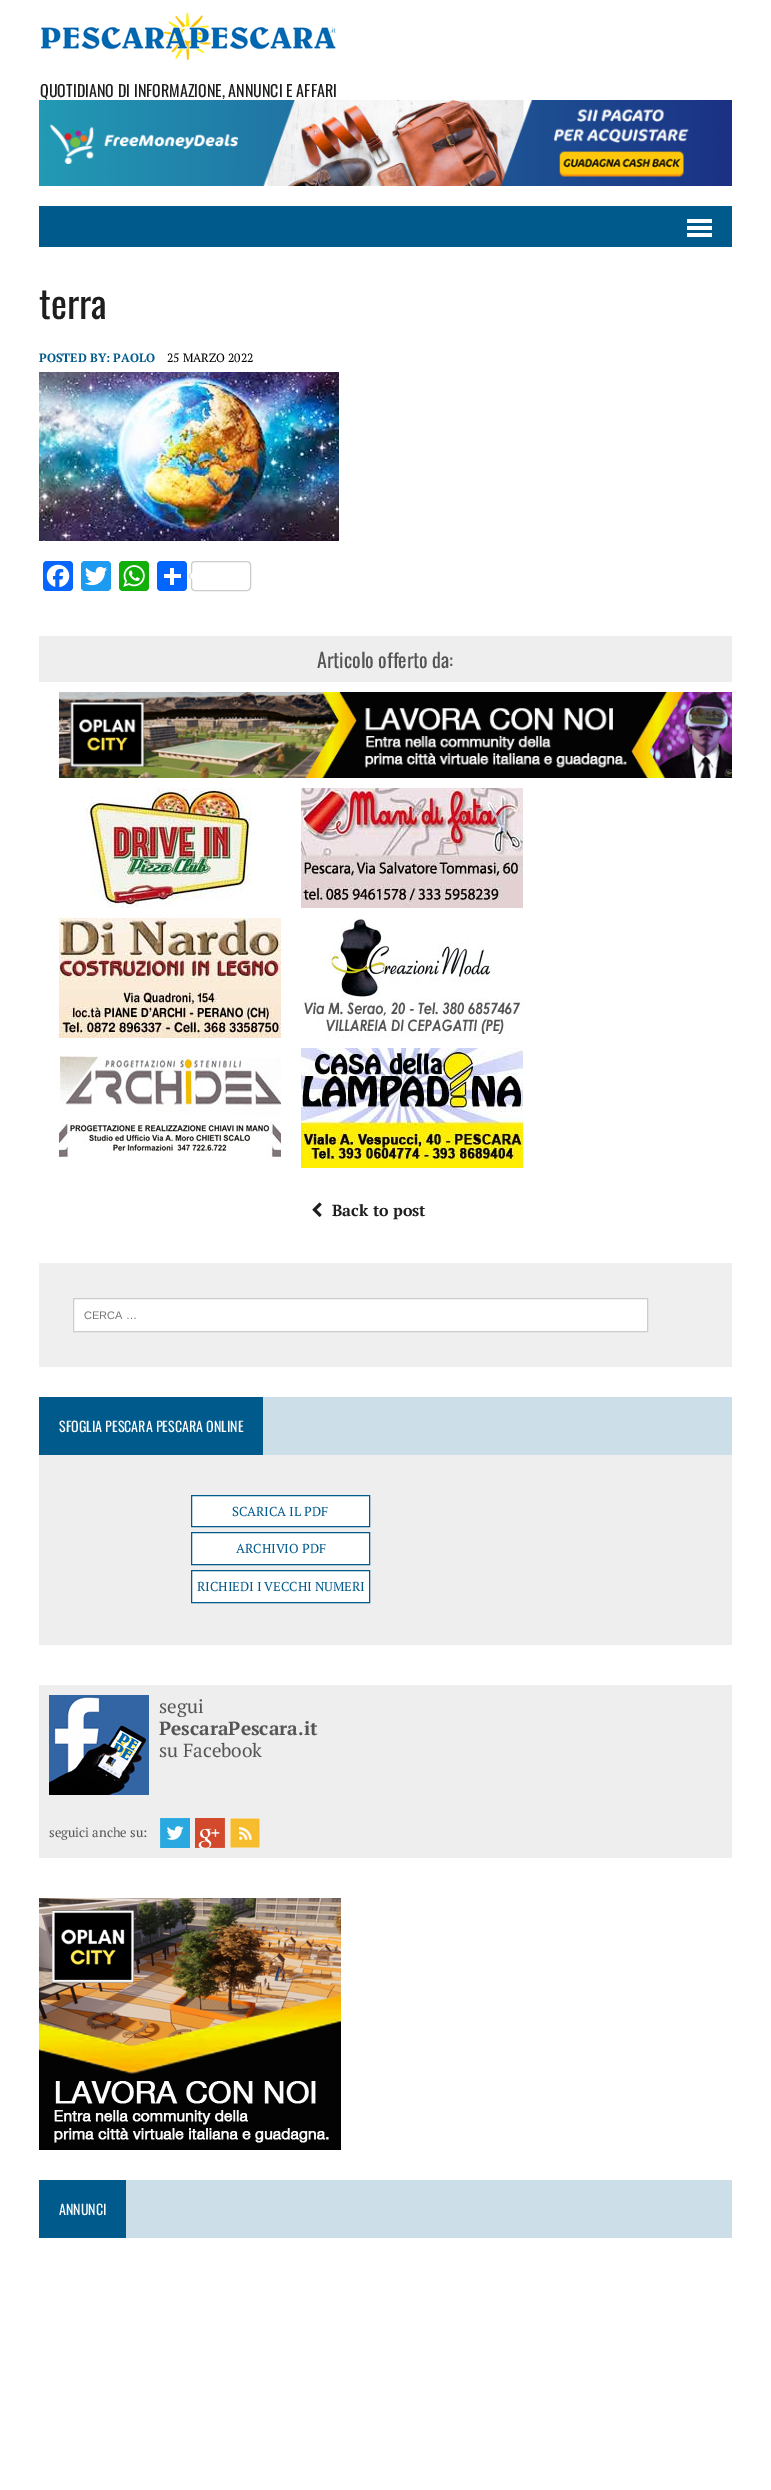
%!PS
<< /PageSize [771 2490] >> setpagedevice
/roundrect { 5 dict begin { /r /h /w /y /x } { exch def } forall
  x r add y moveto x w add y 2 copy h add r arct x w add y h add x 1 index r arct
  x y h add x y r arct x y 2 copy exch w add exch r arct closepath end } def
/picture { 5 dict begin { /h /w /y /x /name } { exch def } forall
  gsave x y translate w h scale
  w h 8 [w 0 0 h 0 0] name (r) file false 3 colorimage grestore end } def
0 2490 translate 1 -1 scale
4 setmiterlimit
1 setgray
0 0 771 2490 rectfill
(img1.rgb) 40 12 297 48 picture
/Oswald-Regular [16 0 0 -16 0 0] selectfont
0.122 0.118 0.118 setrgbcolor
40 97 moveto (QUOTIDIANO DI INFORMAZIONE, ANNUNCI E AFFARI) show
(img2.rgb) 39 100 693 86 picture
0 0.353 0.549 setrgbcolor
39 206 693 41 rectfill
1 setgray
687 219 25 4 rectfill
687 226 25 4 rectfill
687 233 25 4 rectfill
/Oswald-Regular [38 0 0 -38 0 0] selectfont
0.122 0.118 0.118 setrgbcolor
39 319 moveto (terra) show
/PTSerif-Bold [12 0 0 -12 0 0] selectfont
0 0.353 0.549 setrgbcolor
39 362 moveto (POSTED BY: PAOLO) show
/PTSerif-Regular [12 0 0 -12 0 0] selectfont
0 setgray
167 362 moveto (25 MARZO 2022) show
(img3.rgb) 39 372 300 169 picture
0.031 0.4 1 setrgbcolor
43 561 30 30 4 roundrect fill
(img4.rgb) 46 564 24 24 picture
0.114 0.608 0.941 setrgbcolor
81 561 30 30 4 roundrect fill
(img5.rgb) 85 566 23 20 picture
0.071 0.686 0.039 setrgbcolor
119 561 30 30 4 roundrect fill
(img6.rgb) 123 565 22 22 picture
0.004 0.4 1 setrgbcolor
157 561 30 30 4 roundrect fill
1 setgray
170 568 4 17 rectfill
164 574 17 4 rectfill
0.8 setgray
191.5 561.5 59 29 3.5 roundrect stroke
newpath 192 572 moveto 192 580 lineto 188 576 lineto closepath fill
1 setgray
newpath 193 572 moveto 193 580 lineto 189 576 lineto closepath fill
0.933 setgray
39 636 693 46 rectfill
/Oswald-Regular [20 0 0 -20 0 0] selectfont
0.333 setgray
317 668 moveto (Articolo offerto da:) show
(img7.rgb) 59 692 673 86 picture
(img8.rgb) 84 788 168 120 picture
(img9.rgb) 301 788 222 120 picture
(img10.rgb) 59 918 222 120 picture
(img11.rgb) 302 918 221 120 picture
(img12.rgb) 59 1056 222 104 picture
(img13.rgb) 301 1048 222 120 picture
(img14.rgb) 312 1202 10 15 picture
/PTSerif-Bold [16 0 0 -16 0 0] selectfont
0.122 0.118 0.118 setrgbcolor
332 1216 moveto (Back to post) show
0.937 setgray
39 1263 693 104 rectfill
1 setgray
newpath 73.5 1298.5 moveto 647.5 1298.5 lineto 647.5 1331.5 lineto 73.5 1331.5 lineto closepath gsave fill grestore
0.804 setgray
stroke
/LiberationSans-Regular [11 0 0 -11 0 0] selectfont
0.459 setgray
84 1319 moveto (CERCA …) show
0.8 0.871 0.91 setrgbcolor
263 1397 469 58 rectfill
0 0.353 0.549 setrgbcolor
39 1397 224 58 rectfill
/Oswald-Regular [14 0 0 -14 0 0] selectfont
1 setgray
59 1432 moveto (SFOGLIA PESCARA PESCARA ONLINE) show
0.933 setgray
39 1455 693 190 rectfill
1 setgray
newpath 191.5 1495.5 moveto 369.5 1495.5 lineto 369.5 1526.5 lineto 191.5 1526.5 lineto closepath gsave fill grestore
0 0.353 0.549 setrgbcolor
stroke
/PTSerif-Regular [13 0 0 -13 0 0] selectfont
232 1516 moveto (SCARICA IL PDF) show
1 setgray
newpath 191.5 1532.5 moveto 369.5 1532.5 lineto 369.5 1564.5 lineto 191.5 1564.5 lineto closepath gsave fill grestore
0 0.353 0.549 setrgbcolor
stroke
236 1553 moveto (ARCHIVIO PDF) show
1 setgray
newpath 191.5 1570.5 moveto 369.5 1570.5 lineto 369.5 1602.5 lineto 191.5 1602.5 lineto closepath gsave fill grestore
0 0.353 0.549 setrgbcolor
stroke
197 1591 moveto (RICHIEDI I VECCHI NUMERI) show
0.933 setgray
39 1685 693 173 rectfill
(img15.rgb) 49 1695 100 100 picture
/PTSerif-Regular [19 0 0 -19 0 0] selectfont
0.333 setgray
159 1713 moveto (segui) show
/PTSerif-Bold [19 0 0 -19 0 0] selectfont
159 1735 moveto (PescaraPescara.it) show
/PTSerif-Regular [19 0 0 -19 0 0] selectfont
159 1757 moveto (su Facebook) show
/PTSerif-Regular [13 0 0 -13 0 0] selectfont
49 1837 moveto (seguici anche su:) show
(img16.rgb) 160 1818 30 30 picture
(img17.rgb) 195 1818 30 30 picture
(img18.rgb) 230 1818 30 30 picture
(img19.rgb) 39 1898 302 252 picture
0.8 0.871 0.91 setrgbcolor
126 2180 606 58 rectfill
0 0.353 0.549 setrgbcolor
39 2180 87 58 rectfill
/Oswald-Regular [14 0 0 -14 0 0] selectfont
1 setgray
59 2215 moveto (ANNUNCI) show
showpage
